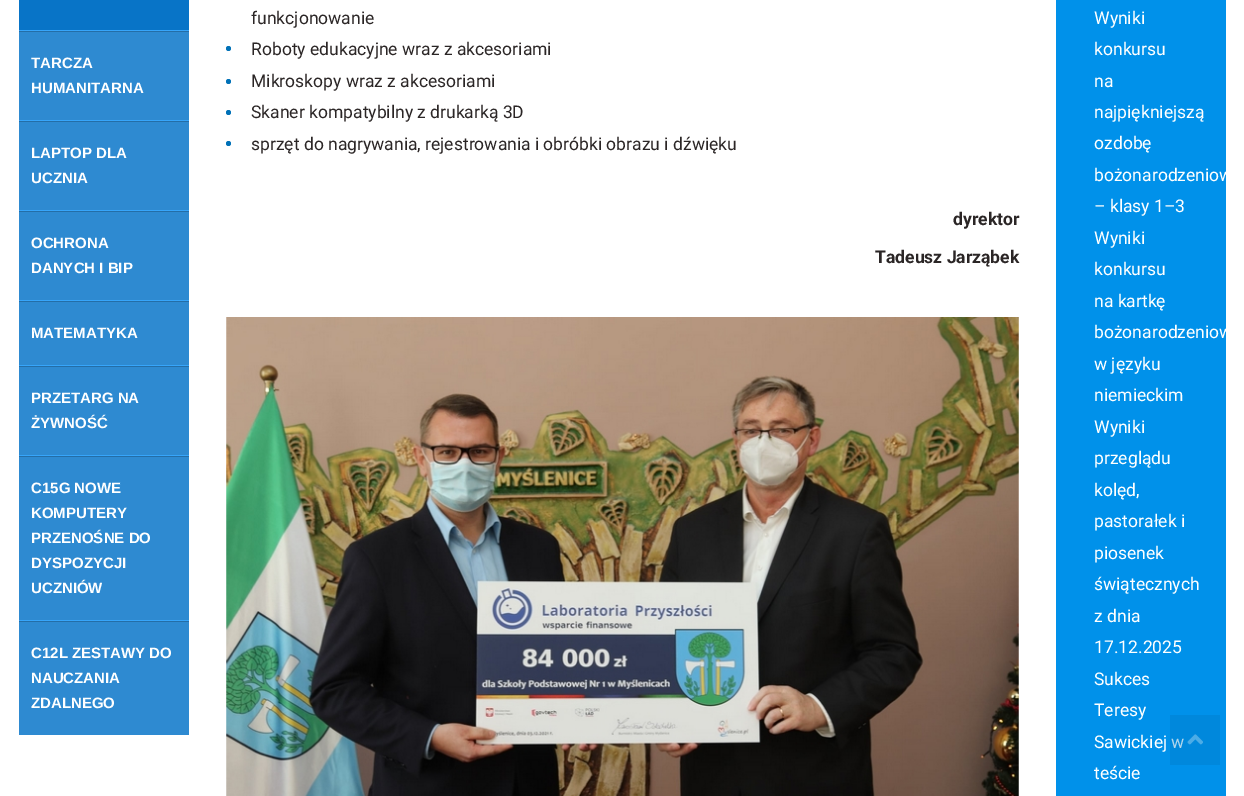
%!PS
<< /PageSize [1244 796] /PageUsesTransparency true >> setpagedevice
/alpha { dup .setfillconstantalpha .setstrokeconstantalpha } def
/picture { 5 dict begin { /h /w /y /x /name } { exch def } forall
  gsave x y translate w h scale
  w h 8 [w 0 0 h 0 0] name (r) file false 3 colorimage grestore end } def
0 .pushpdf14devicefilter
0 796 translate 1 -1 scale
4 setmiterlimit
1 setgray
0 0 1244 796 rectfill
0.18 0.541 0.82 setrgbcolor
19 32 170 703 rectfill
0.031 0.455 0.78 setrgbcolor
19 0 170 30 rectfill
0.216 0.647 0.98 setrgbcolor
19 30 170 1 rectfill
0.141 0.431 0.655 setrgbcolor
19 31 170 1 rectfill
0.216 0.647 0.98 setrgbcolor
19 120 170 1 rectfill
/LiberationSans-Bold [15 0 0 -15 0 0] selectfont
1 setgray
31 68 moveto (TARCZA) show
31 93 moveto (HUMANITARNA) show
0.141 0.431 0.655 setrgbcolor
19 121 170 1 rectfill
0.216 0.647 0.98 setrgbcolor
19 210 170 1 rectfill
1 setgray
31 158 moveto (LAPTOP DLA) show
31 183 moveto (UCZNIA) show
0.141 0.431 0.655 setrgbcolor
19 211 170 1 rectfill
0.216 0.647 0.98 setrgbcolor
19 300 170 1 rectfill
1 setgray
31 248 moveto (OCHRONA) show
31 273 moveto (DANYCH I BIP) show
0.141 0.431 0.655 setrgbcolor
19 301 170 1 rectfill
0.216 0.647 0.98 setrgbcolor
19 365 170 1 rectfill
1 setgray
31 338 moveto (MATEMATYKA) show
0.141 0.431 0.655 setrgbcolor
19 366 170 1 rectfill
0.216 0.647 0.98 setrgbcolor
19 455 170 1 rectfill
1 setgray
31 403 moveto (PRZETARG NA) show
31 428 moveto (ŻYWNOŚĆ) show
0.141 0.431 0.655 setrgbcolor
19 456 170 1 rectfill
0.216 0.647 0.98 setrgbcolor
19 620 170 1 rectfill
1 setgray
31 493 moveto (C15G NOWE) show
31 518 moveto (KOMPUTERY) show
31 543 moveto (PRZENOŚNE DO) show
31 568 moveto (DYSPOZYCJI) show
31 593 moveto (UCZNIÓW) show
0.141 0.431 0.655 setrgbcolor
19 621 170 1 rectfill
1 setgray
31 658 moveto (C12L ZESTAWY DO) show
31 683 moveto (NAUCZANIA) show
31 708 moveto (ZDALNEGO) show
/Roboto-Regular [17.5 0 0 -17.5 0 0] selectfont
0.169 0.149 0.149 setrgbcolor
251 24 moveto (funkcjonowanie) show
0 0.443 0.718 setrgbcolor
newpath 228.5 48.5 2.5 0 360 arc closepath fill
0.169 0.149 0.149 setrgbcolor
251 55 moveto (Roboty edukacyjne wraz z akcesoriami) show
0 0.443 0.718 setrgbcolor
newpath 228.5 81.5 2.5 0 360 arc closepath fill
0.169 0.149 0.149 setrgbcolor
251 87 moveto (Mikroskopy wraz z akcesoriami) show
0 0.443 0.718 setrgbcolor
newpath 228.5 112.5 2.5 0 360 arc closepath fill
0.169 0.149 0.149 setrgbcolor
251 118 moveto (Skaner kompatybilny z drukarką 3D) show
0 0.443 0.718 setrgbcolor
newpath 228.5 143.5 2.5 0 360 arc closepath fill
0.169 0.149 0.149 setrgbcolor
251 150 moveto (sprzęt do nagrywania, rejestrowania i obróbki obrazu i dźwięku) show
/Roboto-Bold [17.5 0 0 -17.5 0 0] selectfont
953 225 moveto (dyrektor) show
875 263 moveto (Tadeusz Jarząbek) show
(img1.rgb) 226 317 793 479 picture
0 0.569 0.918 setrgbcolor
1056 0 170 796 rectfill
/Roboto-Regular [17.5 0 0 -17.5 0 0] selectfont
1 setgray
1094 24 moveto (Wyniki) show
1094 55 moveto (konkursu) show
1094 87 moveto (na) show
1094 118 moveto (najpiękniejszą) show
1094 149 moveto (ozdobę) show
1094 181 moveto (bożonarodzeniow) show
1094 212 moveto (– klasy 1–3) show
1094 244 moveto (Wyniki) show
1094 275 moveto (konkursu) show
1094 307 moveto (na kartkę) show
1094 338 moveto (bożonarodzeniow) show
1094 370 moveto (w języku) show
1094 401 moveto (niemieckim) show
1094 433 moveto (Wyniki) show
1094 464 moveto (przeglądu) show
1094 496 moveto (kolęd,) show
1094 527 moveto (pastorałek i) show
1094 559 moveto (piosenek) show
1094 590 moveto (świątecznych) show
1094 622 moveto (z dnia) show
1094 653 moveto (17.12.2025) show
1094 685 moveto (Sukces) show
1094 716 moveto (Teresy) show
1094 748 moveto (Sawickiej w) show
1094 779 moveto (teście) show
0.3 alpha
0 0.455 0.733 setrgbcolor
1170 715 50 50 rectfill
1 alpha
(img2.rgb) 1187 734 16 11 picture
.poppdf14devicefilter showpage
